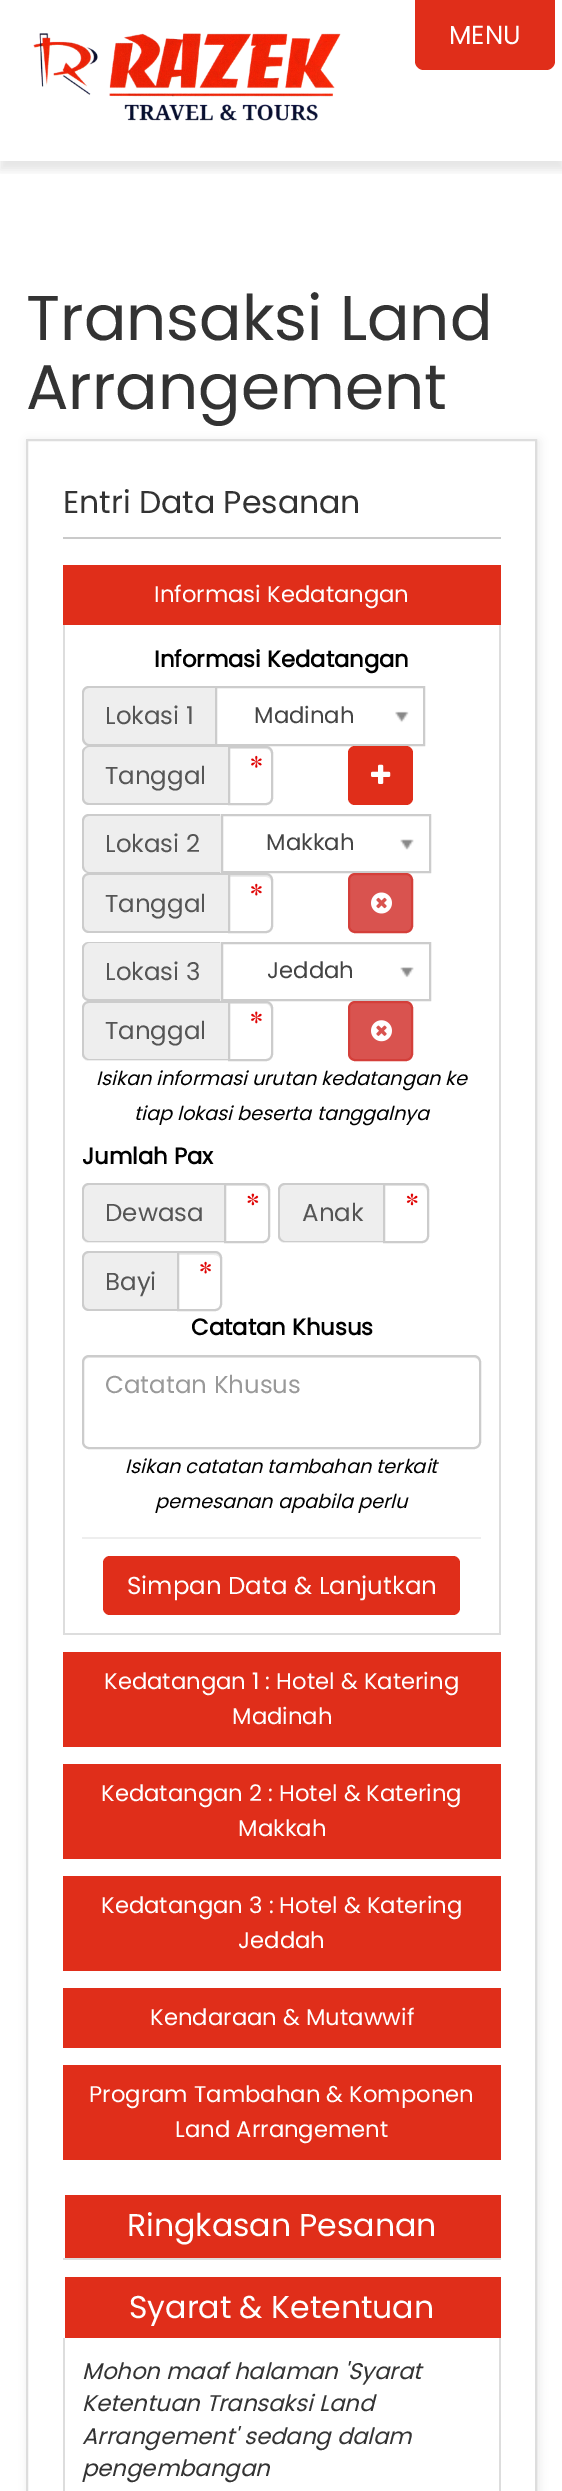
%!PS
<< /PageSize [562 2491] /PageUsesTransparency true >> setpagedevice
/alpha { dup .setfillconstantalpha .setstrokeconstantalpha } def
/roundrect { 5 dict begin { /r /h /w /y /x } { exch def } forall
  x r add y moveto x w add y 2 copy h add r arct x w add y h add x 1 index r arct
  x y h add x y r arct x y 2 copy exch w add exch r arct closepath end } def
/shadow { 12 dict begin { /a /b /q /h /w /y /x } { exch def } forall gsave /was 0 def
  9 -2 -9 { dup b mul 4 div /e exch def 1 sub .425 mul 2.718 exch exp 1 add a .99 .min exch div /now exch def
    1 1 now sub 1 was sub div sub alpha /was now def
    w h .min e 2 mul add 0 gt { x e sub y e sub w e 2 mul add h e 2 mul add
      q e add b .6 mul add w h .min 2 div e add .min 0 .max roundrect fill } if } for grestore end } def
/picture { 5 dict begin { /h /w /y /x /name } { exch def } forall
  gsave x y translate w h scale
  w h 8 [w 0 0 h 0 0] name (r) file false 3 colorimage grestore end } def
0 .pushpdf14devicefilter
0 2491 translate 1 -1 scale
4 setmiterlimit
1 setgray
0 0 562 2491 rectfill
gsave
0 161 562 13 rectclip
0 setgray
0 9 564 161 0 4.5 0.1 shadow
grestore
(img1.rgb) 33 33 308 88 picture
0.878 0.18 0.102 setrgbcolor
newpath 415 0 moveto 555 0 lineto 555 61 lineto 555 66 551 70 546 70 curveto 424 70 lineto 419 70 415 66 415 61 curveto closepath fill
/Poppins-Regular [26 0 0 -26 0 0] selectfont
1 setgray
449 44 moveto (MENU) show
/Poppins-Regular [63 0 0 -63 0 0] selectfont
0.2 setgray
26 340 moveto (Transaksi Land) show
26 409 moveto (Arrangement) show
0 setgray
28 441 511 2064 0 4.5 0.08 shadow
1 setgray
newpath 27 440 moveto 536 440 lineto 536 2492 lineto 27 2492 lineto closepath gsave fill grestore
0.867 setgray
2 setlinewidth
stroke
0.792 setgray
63 537 438 2 rectfill
/Poppins-Regular [31.5 0 0 -31.5 0 0] selectfont
0.2 setgray
63 513 moveto (Entri Data Pesanan) show
0.878 0.18 0.102 setrgbcolor
63 565 438 60 rectfill
/Poppins-Regular [22.75 0 0 -22.75 0 0] selectfont
1 setgray
154 602 moveto (Informasi Kedatangan) show
0.867 setgray
499 625 2 1010 rectfill
63 1633 438 2 rectfill
63 625 2 1010 rectfill
/Poppins-Bold [22.75 0 0 -22.75 0 0] selectfont
0 setgray
154 667 moveto (Informasi Kedatangan) show
0.933 setgray
newpath 89 686 moveto 215 686 lineto 215 746 lineto 89 746 lineto 85 746 82 743 82 739 curveto 82 693 lineto 82 689 85 686 89 686 curveto closepath fill
0.8 setgray
newpath 89 686 moveto 215 686 lineto 215 746 lineto 89 746 lineto 85 746 82 742 82 738 curveto 82 693 lineto 82 689 85 686 89 686 curveto closepath 89 688 moveto 215 688 lineto 215 744 lineto 89 744 lineto 86 744 84 741 84 738 curveto 84 693 lineto 84 690 86 688 89 688 curveto closepath eofill
/Poppins-Regular [24.5 0 0 -24.5 0 0] selectfont
0.333 setgray
105 724 moveto (Lokasi 1) show
0.8 setgray
216 687 208 58 rectstroke
/Poppins-Regular [22.75 0 0 -22.75 0 0] selectfont
0.267 setgray
254 723 moveto (Madinah) show
(img2.rgb) 395 711 14 12 picture
0.933 setgray
newpath 89 746 moveto 228 746 lineto 228 805 lineto 89 805 lineto 85 805 82 802 82 798 curveto 82 753 lineto 82 749 85 746 89 746 curveto closepath fill
0.8 setgray
newpath 89 746 moveto 228 746 lineto 228 805 lineto 89 805 lineto 85 805 82 802 82 798 curveto 82 752 lineto 82 749 85 746 89 746 curveto closepath 89 747 moveto 228 747 lineto 228 803 lineto 89 803 lineto 86 803 84 801 84 798 curveto 84 752 lineto 84 750 86 747 89 747 curveto closepath eofill
/Poppins-Regular [24.5 0 0 -24.5 0 0] selectfont
0.333 setgray
105 784 moveto (Tanggal) show
(img3.rgb) 251 755 11 13 picture
0.925 setgray
newpath 229 749 moveto 266 749 lineto 269 749 271 751 271 754 curveto 271 752 lineto 271 749 269 747 266 747 curveto 229 747 lineto closepath fill
0.8 setgray
newpath 229 747 moveto 266 747 lineto 269.5 747 272 749.5 272 753 curveto 272 798 lineto 272 801.5 269.5 804 266 804 curveto 229 804 lineto closepath stroke
0.878 0.18 0.102 setrgbcolor
348 746 65 59 7 roundrect fill
(img4.rgb) 371 764 20 20 picture
0.933 setgray
newpath 89 814 moveto 221 814 lineto 221 873 lineto 89 873 lineto 85 873 82 870 82 866 curveto 82 821 lineto 82 817 85 814 89 814 curveto closepath fill
0.8 setgray
newpath 89 814 moveto 220 814 lineto 220 873 lineto 89 873 lineto 85 873 82 870 82 866 curveto 82 821 lineto 82 817 85 814 89 814 curveto closepath 89 816 moveto 220 816 lineto 220 872 lineto 89 872 lineto 86 872 84 869 84 866 curveto 84 821 lineto 84 818 86 816 89 816 curveto closepath eofill
0.333 setgray
105 852 moveto (Lokasi 2) show
0.8 setgray
222 815 208 57 rectstroke
/Poppins-Regular [22.75 0 0 -22.75 0 0] selectfont
0.267 setgray
266 850 moveto (Makkah) show
(img5.rgb) 400 839 14 11 picture
0.933 setgray
newpath 89 873 moveto 228 873 lineto 228 933 lineto 89 933 lineto 85 933 82 930 82 926 curveto 82 880 lineto 82 876 85 873 89 873 curveto closepath fill
0.8 setgray
newpath 89 873 moveto 228 873 lineto 228 933 lineto 89 933 lineto 85 933 82 930 82 926 curveto 82 880 lineto 82 876 85 873 89 873 curveto closepath 89 875 moveto 228 875 lineto 228 931 lineto 89 931 lineto 86 931 84 929 84 926 curveto 84 880 lineto 84 877 86 875 89 875 curveto closepath eofill
/Poppins-Regular [24.5 0 0 -24.5 0 0] selectfont
0.333 setgray
105 912 moveto (Tanggal) show
(img6.rgb) 251 883 11 13 picture
0.925 setgray
newpath 229 877 moveto 266 877 lineto 269 877 271 879 271 882 curveto 271 880 lineto 271 877 269 875 266 875 curveto 229 875 lineto closepath fill
0.8 setgray
newpath 229 874 moveto 266 874 lineto 269.5 874 272 876.5 272 880 curveto 272 926 lineto 272 929.5 269.5 932 266 932 curveto 229 932 lineto closepath stroke
0.851 0.325 0.31 setrgbcolor
349 874 63 58 6 roundrect gsave fill grestore
0.831 0.247 0.227 setrgbcolor
stroke
(img7.rgb) 371 892 21 22 picture
0.933 setgray
newpath 89 942 moveto 221 942 lineto 221 1001 lineto 89 1001 lineto 85 1001 82 998 82 994 curveto 82 949 lineto 82 945 85 942 89 942 curveto closepath fill
0.8 setgray
newpath 89 942 moveto 220 942 lineto 220 1001 lineto 89 1001 lineto 85 1001 82 998 82 994 curveto 82 948 lineto 82 945 85 942 89 942 curveto closepath 89 943 moveto 220 943 lineto 220 999 lineto 89 999 lineto 86 999 84 997 84 994 curveto 84 948 lineto 84 946 86 943 89 943 curveto closepath eofill
0.333 setgray
105 980 moveto (Lokasi 3) show
0.8 setgray
222 943 208 57 rectstroke
/Poppins-Regular [22.75 0 0 -22.75 0 0] selectfont
0.267 setgray
267 978 moveto (Jeddah) show
(img8.rgb) 400 967 14 11 picture
0.933 setgray
newpath 89 1001 moveto 228 1001 lineto 228 1061 lineto 89 1061 lineto 85 1061 82 1058 82 1054 curveto 82 1008 lineto 82 1004 85 1001 89 1001 curveto closepath fill
0.8 setgray
newpath 89 1001 moveto 228 1001 lineto 228 1060 lineto 89 1060 lineto 85 1060 82 1057 82 1054 curveto 82 1008 lineto 82 1004 85 1001 89 1001 curveto closepath 89 1003 moveto 228 1003 lineto 228 1059 lineto 89 1059 lineto 86 1059 84 1056 84 1054 curveto 84 1008 lineto 84 1005 86 1003 89 1003 curveto closepath eofill
/Poppins-Regular [24.5 0 0 -24.5 0 0] selectfont
0.333 setgray
105 1039 moveto (Tanggal) show
(img9.rgb) 251 1011 11 13 picture
0.925 setgray
newpath 229 1004 moveto 266 1004 lineto 269 1004 271 1007 271 1010 curveto 271 1008 lineto 271 1005 269 1003 266 1003 curveto 229 1003 lineto closepath fill
0.8 setgray
newpath 229 1002 moveto 266 1002 lineto 269.5 1002 272 1004.5 272 1008 curveto 272 1054 lineto 272 1057.5 269.5 1060 266 1060 curveto 229 1060 lineto closepath stroke
0.851 0.325 0.31 setrgbcolor
349 1002 63 58 6 roundrect gsave fill grestore
0.831 0.247 0.227 setrgbcolor
stroke
(img10.rgb) 371 1020 21 22 picture
/Poppins-Italic [19.3 0 0 -19.3 0 0] selectfont
0 setgray
96 1085 moveto (Isikan informasi urutan kedatangan ke) show
134 1120 moveto (tiap lokasi beserta tanggalnya) show
/Poppins-Bold [22.75 0 0 -22.75 0 0] selectfont
82 1164 moveto (Jumlah Pax) show
0.933 setgray
newpath 89 1183 moveto 224 1183 lineto 224 1243 lineto 89 1243 lineto 85 1243 82 1240 82 1236 curveto 82 1190 lineto 82 1186 85 1183 89 1183 curveto closepath fill
0.8 setgray
newpath 89 1183 moveto 224 1183 lineto 224 1242 lineto 89 1242 lineto 85 1242 82 1239 82 1236 curveto 82 1190 lineto 82 1186 85 1183 89 1183 curveto closepath 89 1185 moveto 224 1185 lineto 224 1241 lineto 89 1241 lineto 86 1241 84 1238 84 1236 curveto 84 1190 lineto 84 1187 86 1185 89 1185 curveto closepath eofill
/Poppins-Regular [24.5 0 0 -24.5 0 0] selectfont
0.333 setgray
105 1221 moveto (Dewasa) show
(img11.rgb) 247 1193 12 13 picture
0.925 setgray
newpath 226 1186 moveto 262 1186 lineto 265 1186 268 1189 268 1192 curveto 268 1190 lineto 268 1187 266 1185 263 1185 curveto 226 1185 lineto closepath fill
0.8 setgray
newpath 225 1184 moveto 263 1184 lineto 266.5 1184 269 1186.5 269 1190 curveto 269 1236 lineto 269 1239.5 266.5 1242 263 1242 curveto 225 1242 lineto closepath stroke
0.933 setgray
newpath 285 1183 moveto 383 1183 lineto 383 1243 lineto 285 1243 lineto 281 1243 278 1240 278 1236 curveto 278 1190 lineto 278 1186 281 1183 285 1183 curveto closepath fill
0.8 setgray
newpath 285 1183 moveto 383 1183 lineto 383 1242 lineto 285 1242 lineto 281 1242 278 1239 278 1236 curveto 278 1190 lineto 278 1186 281 1183 285 1183 curveto closepath 285 1185 moveto 383 1185 lineto 383 1241 lineto 285 1241 lineto 282 1241 280 1238 280 1236 curveto 280 1190 lineto 280 1187 282 1185 285 1185 curveto closepath eofill
0.333 setgray
302 1221 moveto (Anak) show
(img12.rgb) 406 1193 12 13 picture
0.925 setgray
newpath 385 1186 moveto 422 1186 lineto 425 1186 427 1189 427 1192 curveto 427 1190 lineto 427 1187 425 1185 422 1185 curveto 385 1185 lineto closepath fill
0.8 setgray
newpath 384 1184 moveto 422 1184 lineto 425.5 1184 428 1186.5 428 1190 curveto 428 1236 lineto 428 1239.5 425.5 1242 422 1242 curveto 384 1242 lineto closepath stroke
0.933 setgray
newpath 89 1251 moveto 177 1251 lineto 177 1311 lineto 89 1311 lineto 85 1311 82 1308 82 1304 curveto 82 1258 lineto 82 1254 85 1251 89 1251 curveto closepath fill
0.8 setgray
newpath 89 1251 moveto 177 1251 lineto 177 1311 lineto 89 1311 lineto 85 1311 82 1308 82 1304 curveto 82 1258 lineto 82 1254 85 1251 89 1251 curveto closepath 89 1253 moveto 177 1253 lineto 177 1309 lineto 89 1309 lineto 86 1309 84 1307 84 1304 curveto 84 1258 lineto 84 1255 86 1253 89 1253 curveto closepath eofill
0.333 setgray
105 1290 moveto (Bayi) show
(img13.rgb) 200 1261 11 13 picture
0.925 setgray
newpath 179 1253 moveto 179 1255 lineto 209 1255 lineto 213 1255 220 1254 220 1260 curveto 220 1307 lineto 221 1306 221 1305 221 1304 curveto 221 1258 lineto 221 1255 219 1253 216 1253 curveto closepath fill
0.8 setgray
newpath 178 1252 moveto 215 1252 lineto 218.5 1252 221 1254.5 221 1258 curveto 221 1304 lineto 221 1307.5 218.5 1310 215 1310 curveto 178 1310 lineto closepath stroke
/Poppins-Bold [22.75 0 0 -22.75 0 0] selectfont
0 setgray
191 1335 moveto (Catatan Khusus) show
0.925 setgray
newpath 89 1358 moveto 474 1358 lineto 477 1358 480 1360 480 1363 curveto 480 1361 lineto 480 1358 478 1356 475 1356 curveto 89 1356 lineto 86 1356 84 1358 84 1361 curveto 84 1363 lineto 84 1360 86 1358 89 1358 curveto closepath fill
0.8 setgray
83 1356 397 92 6 roundrect stroke
/Poppins-Regular [24.5 0 0 -24.5 0 0] selectfont
0.6 setgray
105 1393 moveto (Catatan Khusus) show
/Poppins-Italic [19.3 0 0 -19.3 0 0] selectfont
0 setgray
125 1473 moveto (Isikan catatan tambahan terkait) show
155 1508 moveto (pemesanan apabila perlu) show
0.933 setgray
82 1537 399 2 rectfill
0.878 0.18 0.102 setrgbcolor
103 1556 357 59 7 roundrect fill
/Poppins-Regular [24.5 0 0 -24.5 0 0] selectfont
1 setgray
127 1594 moveto (Simpan Data & Lanjutkan) show
0.878 0.18 0.102 setrgbcolor
63 1652 438 95 rectfill
/Poppins-Regular [22.75 0 0 -22.75 0 0] selectfont
1 setgray
104 1689 moveto (Kedatangan 1 : Hotel & Katering) show
232 1724 moveto (Madinah) show
0.878 0.18 0.102 setrgbcolor
63 1764 438 95 rectfill
1 setgray
101 1801 moveto (Kedatangan 2 : Hotel & Katering) show
238 1836 moveto (Makkah) show
0.878 0.18 0.102 setrgbcolor
63 1876 438 95 rectfill
1 setgray
101 1913 moveto (Kedatangan 3 : Hotel & Katering) show
238 1948 moveto (Jeddah) show
0.878 0.18 0.102 setrgbcolor
63 1988 438 60 rectfill
1 setgray
150 2025 moveto (Kendaraan & Mutawwif) show
0.878 0.18 0.102 setrgbcolor
63 2065 438 95 rectfill
1 setgray
89 2102 moveto (Program Tambahan & Komponen) show
175 2137 moveto (Land Arrangement) show
0.867 setgray
63 2258 438 2 rectfill
0.878 0.18 0.102 setrgbcolor
65 2195 436 63 rectfill
/Poppins-Regular [31.5 0 0 -31.5 0 0] selectfont
1 setgray
127 2236 moveto (Ringkasan Pesanan) show
0.878 0.18 0.102 setrgbcolor
65 2277 436 61 rectfill
1 setgray
129 2318 moveto (Syarat & Ketentuan) show
0.867 setgray
499 2338 2 153 rectfill
63 2338 2 153 rectfill
/Poppins-Italic [22.75 0 0 -22.75 0 0] selectfont
0.2 setgray
82 2379 moveto (Mohon maaf halaman 'Syarat) show
82 2411 moveto (Ketentuan Transaksi Land) show
82 2444 moveto (Arrangement' sedang dalam) show
82 2476 moveto (pengembangan) show
.poppdf14devicefilter showpage
